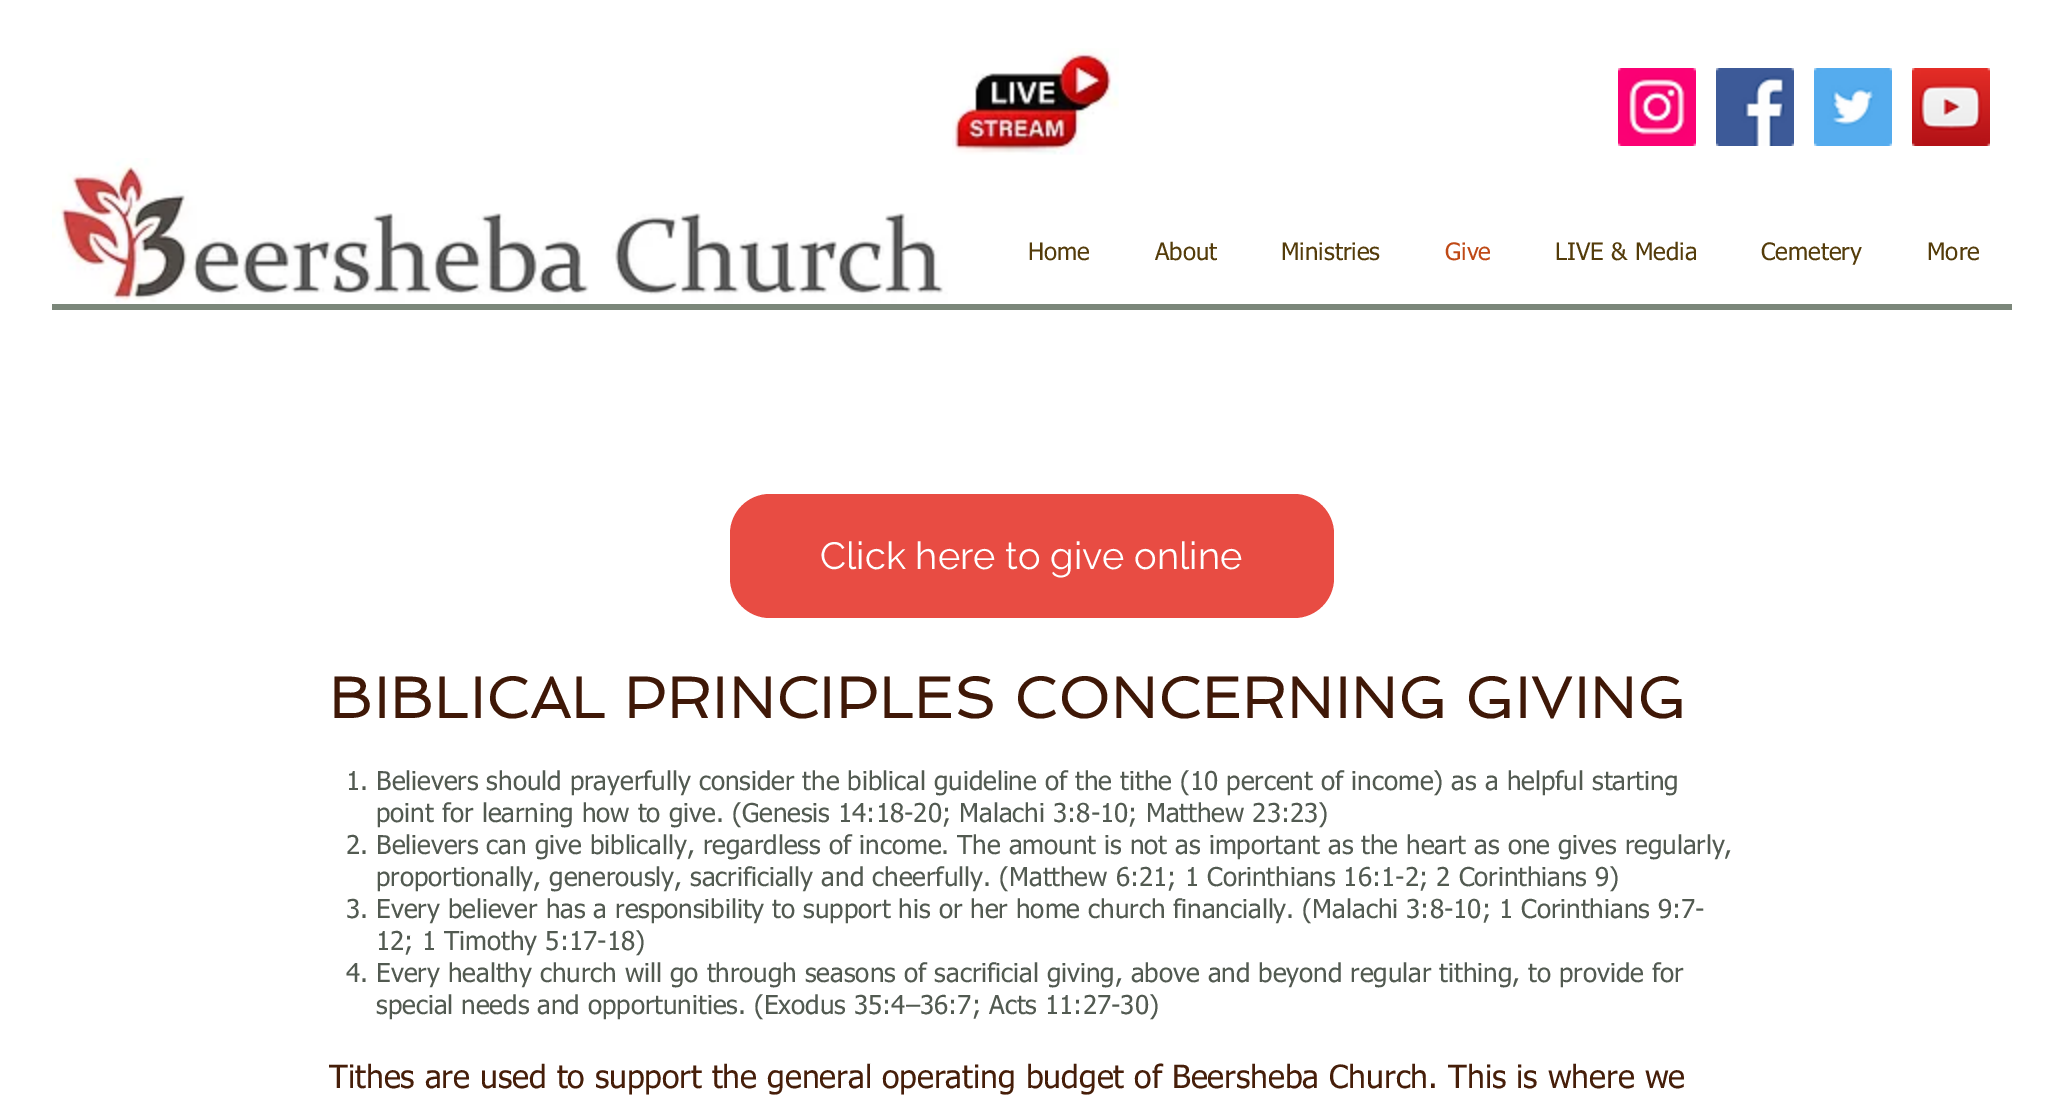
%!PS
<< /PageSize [2061 1106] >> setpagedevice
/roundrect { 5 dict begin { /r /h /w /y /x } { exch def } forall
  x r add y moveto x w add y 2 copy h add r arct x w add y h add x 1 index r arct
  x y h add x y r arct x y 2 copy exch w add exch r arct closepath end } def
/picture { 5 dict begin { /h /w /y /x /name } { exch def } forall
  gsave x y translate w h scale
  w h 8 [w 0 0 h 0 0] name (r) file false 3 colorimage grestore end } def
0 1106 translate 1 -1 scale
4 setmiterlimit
1 setgray
0 0 2061 1106 rectfill
(img1.rgb) 952 48 167 107 picture
(img2.rgb) 1618 68 78 78 picture
(img3.rgb) 1716 68 78 78 picture
(img4.rgb) 1814 68 78 78 picture
(img5.rgb) 1912 68 78 78 picture
(img6.rgb) 52 158 896 145 picture
/tahoma-Regular [24 0 0 -24 0 0] selectfont
0.329 0.235 0.039 setrgbcolor
1028 260 moveto (Home) show
1155 260 moveto (About) show
1281 260 moveto (Ministries) show
0.749 0.286 0.086 setrgbcolor
1445 260 moveto (Give) show
0.329 0.235 0.039 setrgbcolor
1555 260 moveto (LIVE & Media) show
1761 260 moveto (Cemetery) show
1927 260 moveto (More) show
0.482 0.529 0.478 setrgbcolor
52 304 1960 6 rectfill
0.91 0.298 0.263 setrgbcolor
730 494 604 124 40 roundrect fill
/Raleway-Regular [38 0 0 -38 0 0] selectfont
1 setgray
820 569 moveto (Click here to give online) show
/Spinnaker-Regular [60 0 0 -60 0 0] selectfont
0.247 0.094 0.027 setrgbcolor
329 718 moveto (BIBLICAL PRINCIPLES CONCERNING GIVING) show
/tahoma-Regular [26 0 0 -26 0 0] selectfont
0.322 0.353 0.318 setrgbcolor
346 790 moveto (1. Believers should prayerfully consider the biblical guideline of the tithe \(10 percent of income\) as a helpful starting) show
376 822 moveto (point for learning how to give. \(Genesis 14:18-20; Malachi 3:8-10; Matthew 23:23\)) show
346 854 moveto (2. Believers can give biblically, regardless of income. The amount is not as important as the heart as one gives regularly,) show
376 886 moveto (proportionally, generously, sacrificially and cheerfully. \(Matthew 6:21; 1 Corinthians 16:1-2; 2 Corinthians 9\)) show
346 918 moveto (3. Every believer has a responsibility to support his or her home church financially. \(Malachi 3:8-10; 1 Corinthians 9:7-) show
376 950 moveto (12; 1 Timothy 5:17-18\)) show
346 982 moveto (4. Every healthy church will go through seasons of sacrificial giving, above and beyond regular tithing, to provide for) show
376 1014 moveto (special needs and opportunities. \(Exodus 35:4–36:7; Acts 11:27-30\)) show
/tahoma-Regular [32 0 0 -32 0 0] selectfont
0.275 0.118 0.035 setrgbcolor
329 1088 moveto (Tithes are used to support the general operating budget of Beersheba Church. This is where we) show
showpage
